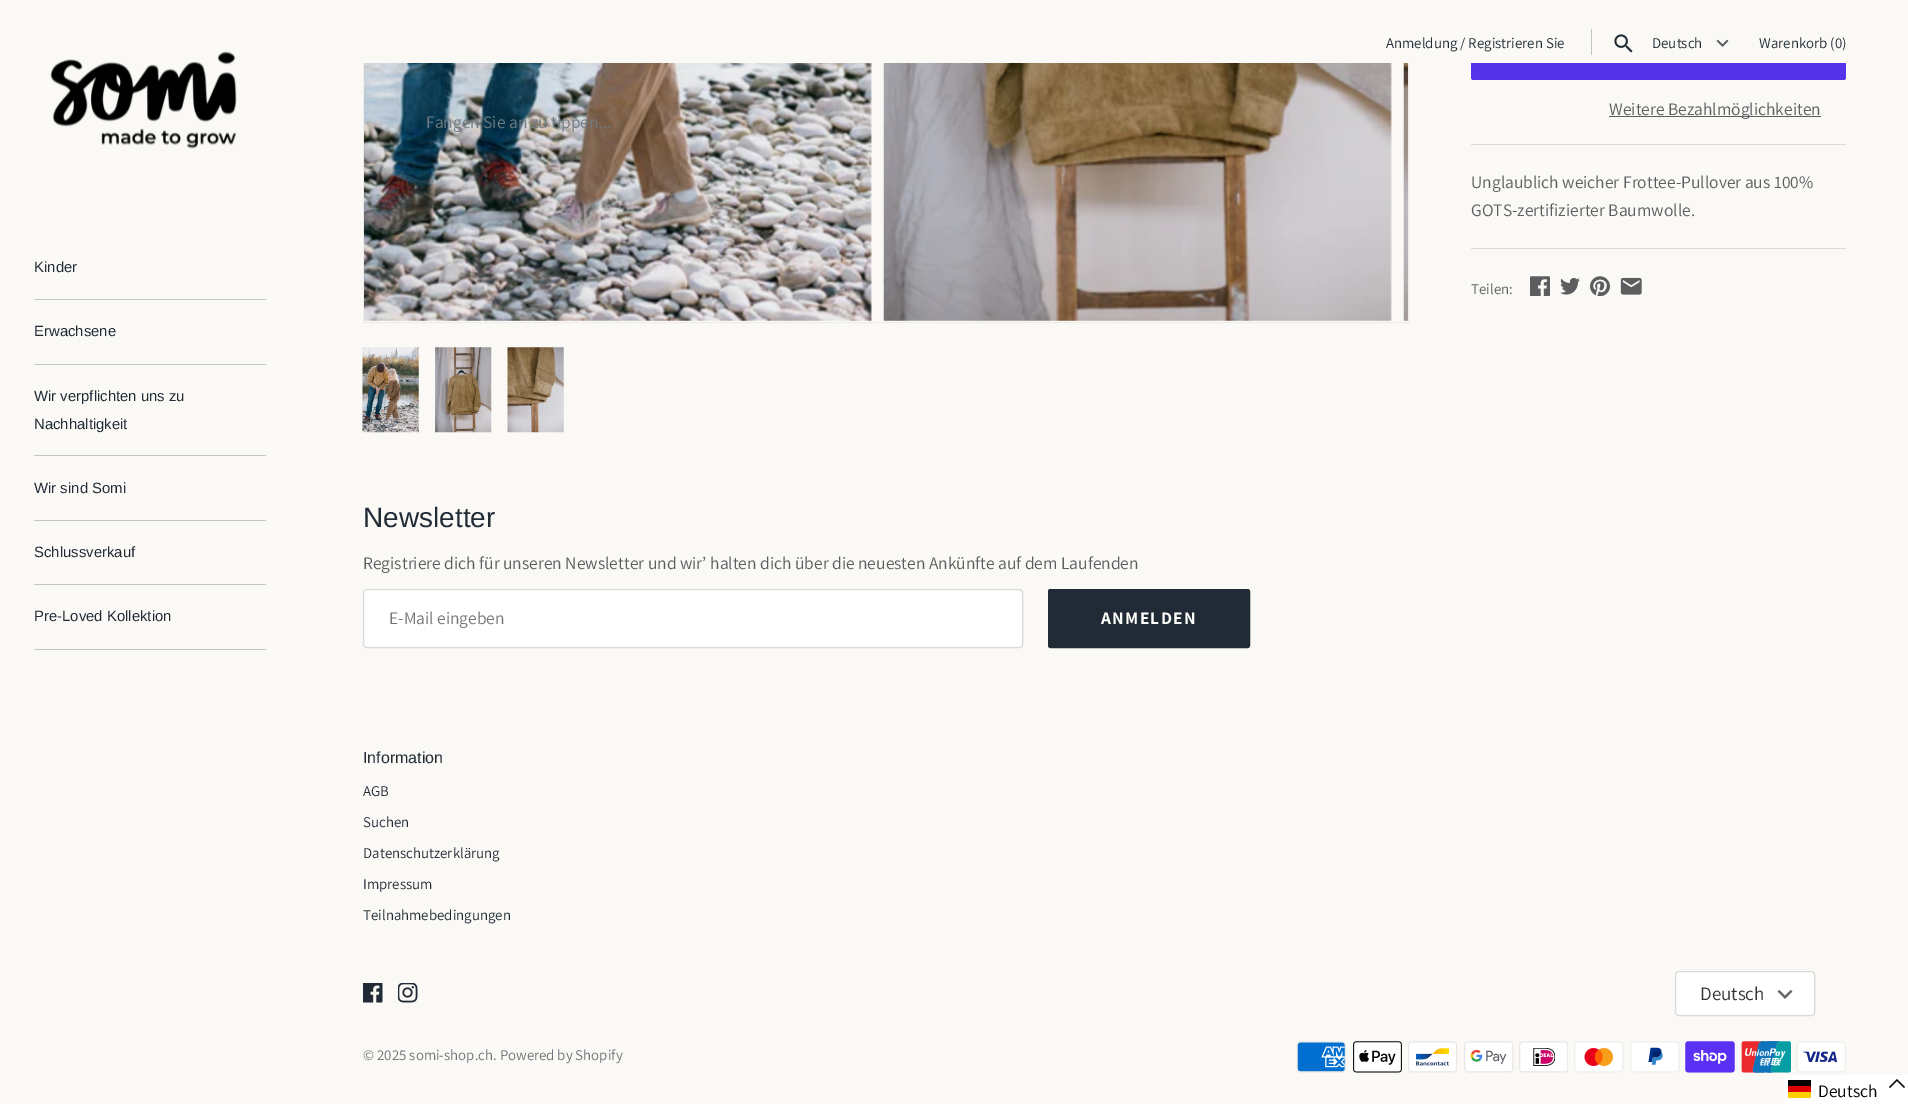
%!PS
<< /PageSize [1908 1104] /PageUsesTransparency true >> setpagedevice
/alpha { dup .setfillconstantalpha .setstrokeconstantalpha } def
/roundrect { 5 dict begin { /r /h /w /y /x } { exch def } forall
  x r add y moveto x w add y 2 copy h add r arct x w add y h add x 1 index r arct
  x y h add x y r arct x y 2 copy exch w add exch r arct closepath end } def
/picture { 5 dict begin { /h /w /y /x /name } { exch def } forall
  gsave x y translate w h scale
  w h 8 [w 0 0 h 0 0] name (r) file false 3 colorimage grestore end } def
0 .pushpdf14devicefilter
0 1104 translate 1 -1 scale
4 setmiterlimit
0.98 0.976 0.961 setrgbcolor
0 0 1908 1104 rectfill
0.933 0.929 0.914 setrgbcolor
363.5 -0.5 1045 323 rectstroke
0.329 0.2 0.922 setrgbcolor
1471 21 375 59 2.5 roundrect fill
0.98 0.976 0.961 setrgbcolor
363 0 1483 63 rectfill
/Assistant-Regular [14.9 0 0 -14.9 0 0] selectfont
0.129 0.169 0.212 setrgbcolor
1386 48 moveto (Anmeldung / Registrieren Sie) show
0.769 0.776 0.773 setrgbcolor
1591 29 1 26 rectfill
(img1.rgb) 1614 34 19 19 picture
0.129 0.169 0.212 setrgbcolor
1652 48 moveto (Deutsch) show
(img2.rgb) 1716 39 13 8 picture
1759 48 moveto (Warenkorb \(0\)) show
(img4.rgb) 364 63 508 258 picture
/Assistant-Regular [17.5 0 0 -17.5 0 0] selectfont
0.435 0.486 0.51 setrgbcolor
426 128 moveto (Fangen Sie an zu tippen...) show
(img3.rgb) 50 51 187 98 picture
0.769 0.776 0.773 setrgbcolor
34 299 232 1 rectfill
/Arimo-Regular [14.9 0 0 -14.9 0 0] selectfont
0.129 0.169 0.212 setrgbcolor
34 272 moveto (Kinder) show
0.769 0.776 0.773 setrgbcolor
34 364 232 1 rectfill
0.129 0.169 0.212 setrgbcolor
34 336 moveto (Erwachsene) show
0.769 0.776 0.773 setrgbcolor
34 455 232 1 rectfill
0.129 0.169 0.212 setrgbcolor
34 401 moveto (Wir verpflichten uns zu) show
34 429 moveto (Nachhaltigkeit) show
0.769 0.776 0.773 setrgbcolor
34 520 232 1 rectfill
0.129 0.169 0.212 setrgbcolor
34 493 moveto (Wir sind Somi) show
0.769 0.776 0.773 setrgbcolor
34 584 232 1 rectfill
0.129 0.169 0.212 setrgbcolor
34 557 moveto (Schlussverkauf) show
0.769 0.776 0.773 setrgbcolor
34 649 232 1 rectfill
0.129 0.169 0.212 setrgbcolor
34 621 moveto (Pre-Loved Kollektion) show
(img5.rgb) 883 63 509 258 picture
(img6.rgb) 1403 63 5 258 picture
(img7.rgb) 362 347 57 86 picture
(img8.rgb) 435 347 57 86 picture
(img9.rgb) 507 347 57 86 picture
0.365 0.365 0.376 setrgbcolor
1609 116 212 1 rectfill
/Assistant-Regular [17.5 0 0 -17.5 0 0] selectfont
1609 115 moveto (Weitere Bezahlmöglichkeiten) show
0.859 0.855 0.843 setrgbcolor
1471 144 375 1 rectfill
0.365 0.365 0.376 setrgbcolor
1471 188 moveto (Unglaublich weicher Frottee-Pullover aus 100%) show
1471 216 moveto (GOTS-zertifizierter Baumwolle.) show
0.859 0.855 0.843 setrgbcolor
1471 248 375 1 rectfill
/Assistant-Regular [14.9 0 0 -14.9 0 0] selectfont
0.365 0.365 0.376 setrgbcolor
1471 294 moveto (Teilen:) show
(img10.rgb) 1530 276 20 20 picture
(img11.rgb) 1560 277 20 18 picture
(img12.rgb) 1590 276 20 20 picture
(img13.rgb) 1620 277 22 18 picture
/Arimo-Regular [28 0 0 -28 0 0] selectfont
0.129 0.169 0.212 setrgbcolor
363 527 moveto (Newsletter) show
/Assistant-Regular [17.5 0 0 -17.5 0 0] selectfont
0.365 0.365 0.376 setrgbcolor
363 569 moveto (Registriere dich für unseren Newsletter und wir’ halten dich über die neuesten Ankünfte auf dem Laufenden) show
1 setgray
363 589 660 59 4 roundrect fill
0.15 alpha
0 setgray
363.5 589.5 659 58 3.5 roundrect stroke
1 alpha
0.459 setgray
389 624 moveto (E-Mail eingeben) show
0.129 0.169 0.212 setrgbcolor
1048.5 589.5 201 58 2 roundrect gsave fill grestore
stroke
/Assistant-Bold [17.5 0 0 -17.5 0 0] selectfont
0.992 0.992 0.976 setrgbcolor
1101 624 moveto 1.25 0 (ANMELDEN) ashow
/Arimo-Regular [16 0 0 -16 0 0] selectfont
0.129 0.169 0.212 setrgbcolor
363 763 moveto (Information) show
/Assistant-Regular [14.9 0 0 -14.9 0 0] selectfont
363 796 moveto (AGB) show
363 827 moveto (Suchen) show
363 858 moveto (Datenschutzerklärung) show
363 889 moveto (Impressum) show
363 920 moveto (Teilnahmebedingungen) show
(img14.rgb) 363 983 20 20 picture
(img15.rgb) 398 983 20 20 picture
1 setgray
1675 971 140 45 4 roundrect fill
0.15 alpha
0 setgray
1675.5 971.5 139 44 3.5 roundrect stroke
/Assistant-Regular [19 0 0 -19 0 0] selectfont
1 alpha
0.2 setgray
1700 1000 moveto (Deutsch) show
(img16.rgb) 1777 989 16 10 picture
/Assistant-Regular [14.9 0 0 -14.9 0 0] selectfont
0.424 0.451 0.471 setrgbcolor
363 1060 moveto (© 2025 somi-shop.ch. Powered by Shopify) show
(img17.rgb) 1296 1041 50 32 picture
(img18.rgb) 1353 1041 49 32 picture
(img19.rgb) 1408 1041 49 32 picture
(img20.rgb) 1464 1041 50 32 picture
(img21.rgb) 1519 1041 49 32 picture
(img22.rgb) 1574 1041 50 32 picture
(img23.rgb) 1630 1041 50 32 picture
(img24.rgb) 1685 1041 50 32 picture
(img25.rgb) 1741 1041 50 32 picture
(img26.rgb) 1796 1041 50 32 picture
1 setgray
1784 1075 124 29 rectfill
1 0.808 0 setrgbcolor
1788 1092 23 6 rectfill
0 setgray
1788 1080 23 6 rectfill
0.867 0 0 setrgbcolor
1788 1086 23 6 rectfill
/Assistant-Regular [17.5 0 0 -17.5 0 0] selectfont
0 setgray
1818 1097 moveto (Deutsch) show
1.2 setlinewidth
newpath 1904.5 1087.5 moveto 1897 1080 lineto 1889.5 1087.5 lineto stroke
.poppdf14devicefilter showpage
